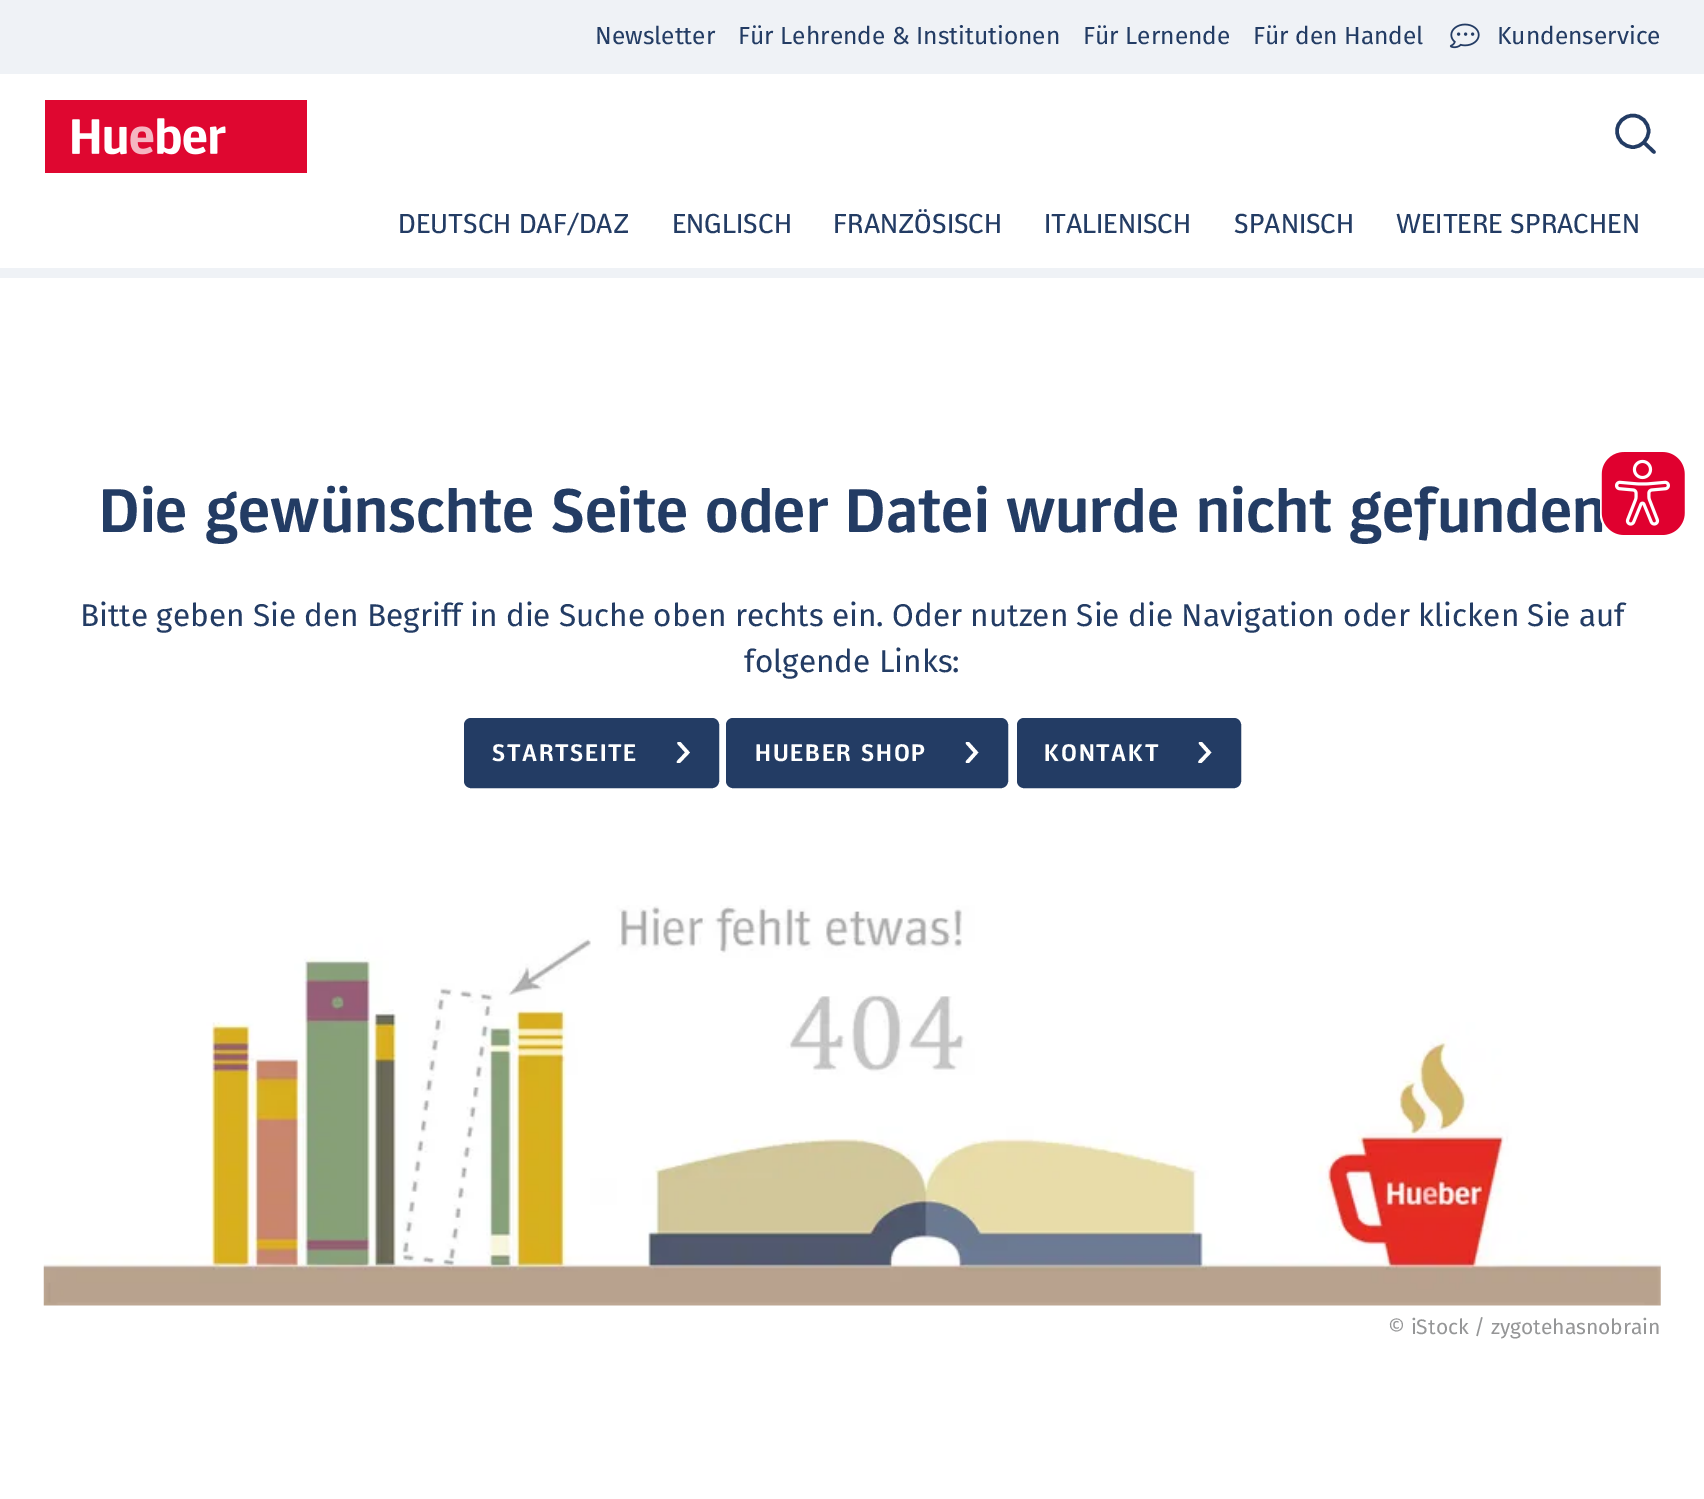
%!PS
<< /PageSize [1704 1499] >> setpagedevice
/roundrect { 5 dict begin { /r /h /w /y /x } { exch def } forall
  x r add y moveto x w add y 2 copy h add r arct x w add y h add x 1 index r arct
  x y h add x y r arct x y 2 copy exch w add exch r arct closepath end } def
/picture { 5 dict begin { /h /w /y /x /name } { exch def } forall
  gsave x y translate w h scale
  w h 8 [w 0 0 h 0 0] name (r) file false 3 colorimage grestore end } def
0 1499 translate 1 -1 scale
4 setmiterlimit
1 setgray
0 0 1704 1499 rectfill
0.937 0.949 0.965 setrgbcolor
0 268 1704 10 rectfill
(img1.rgb) 45 100 262 73 picture
0 0 1704 74 rectfill
/FiraSans-Regular [24.5 0 0 -24.5 0 0] selectfont
0.137 0.235 0.392 setrgbcolor
595 44 moveto (Newsletter) show
738 44 moveto (Für Lehrende & Institutionen) show
1083 44 moveto (Für Lernende) show
1253 44 moveto (Für den Handel) show
(img2.rgb) 1449 23 31 26 picture
1497 44 moveto (Kundenservice) show
/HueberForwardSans-Regular [28 0 0 -28 0 0] selectfont
398 233 moveto (DEUTSCH DAF/DAZ) show
672 233 moveto (ENGLISCH) show
833 233 moveto (FRANZÖSISCH) show
1044 233 moveto (ITALIENISCH) show
1234 233 moveto (SPANISCH) show
1396 233 moveto (WEITERE SPRACHEN) show
3.5 setlinewidth
1 setlinecap
1 setlinejoin
newpath 1645 143.5 moveto 1654 152 lineto closepath 1648.5 131 moveto 1648.5 140 1641.5 147 1633 147 curveto 1624 147 1617 140 1617 131 curveto 1617 122.5 1624 115.5 1633 115.5 curveto 1641.5 115.5 1648.5 122.5 1648.5 131 curveto closepath stroke
/HueberForwardSans-SemiBold [63 0 0 -63 0 0] selectfont
99 532 moveto (Die gewünschte Seite oder Datei wurde nicht gefunden) show
(img3.rgb) 1600 452 85 83 picture
/FiraSans-Regular [31.5 0 0 -31.5 0 0] selectfont
80 626 moveto (Bitte geben Sie den Begriff in die Suche oben rechts ein. Oder nutzen Sie die Navigation oder klicken Sie auf) show
744 672 moveto (folgende Links:) show
465 719 253 68 6 roundrect gsave fill grestore
2 setlinewidth
0 setlinecap
0 setlinejoin
stroke
/HueberForwardSans-SemiBold [24.5 0 0 -24.5 0 0] selectfont
1 setgray
492 761 moveto 1.75 0 (STARTSEITE) ashow
gsave
676 742 15 21 rectclip
3.5 setlinewidth
1 setlinecap
newpath 679 743 moveto 687.5 752.5 lineto 678.5 762 lineto stroke
grestore
0.137 0.235 0.392 setrgbcolor
727 719 280 68 6 roundrect gsave fill grestore
stroke
1 setgray
755 761 moveto 1.75 0 (HUEBER SHOP) ashow
gsave
964 742 16 21 rectclip
3.5 setlinewidth
1 setlinecap
newpath 967.5 743 moveto 976 752.5 lineto 967.5 762 lineto stroke
grestore
0.137 0.235 0.392 setrgbcolor
1018 719 222 68 6 roundrect gsave fill grestore
stroke
1 setgray
1044 761 moveto 1.75 0 (KONTAKT) ashow
gsave
1197 742 16 21 rectclip
3.5 setlinewidth
1 setlinecap
newpath 1200.5 743 moveto 1209 752.5 lineto 1200 762 lineto stroke
grestore
(img4.rgb) 43 905 1618 401 picture
/FiraSans-Regular [21 0 0 -21 0 0] selectfont
0.584 0.588 0.592 setrgbcolor
1388 1334 moveto (© iStock / zygotehasnobrain) show
showpage
